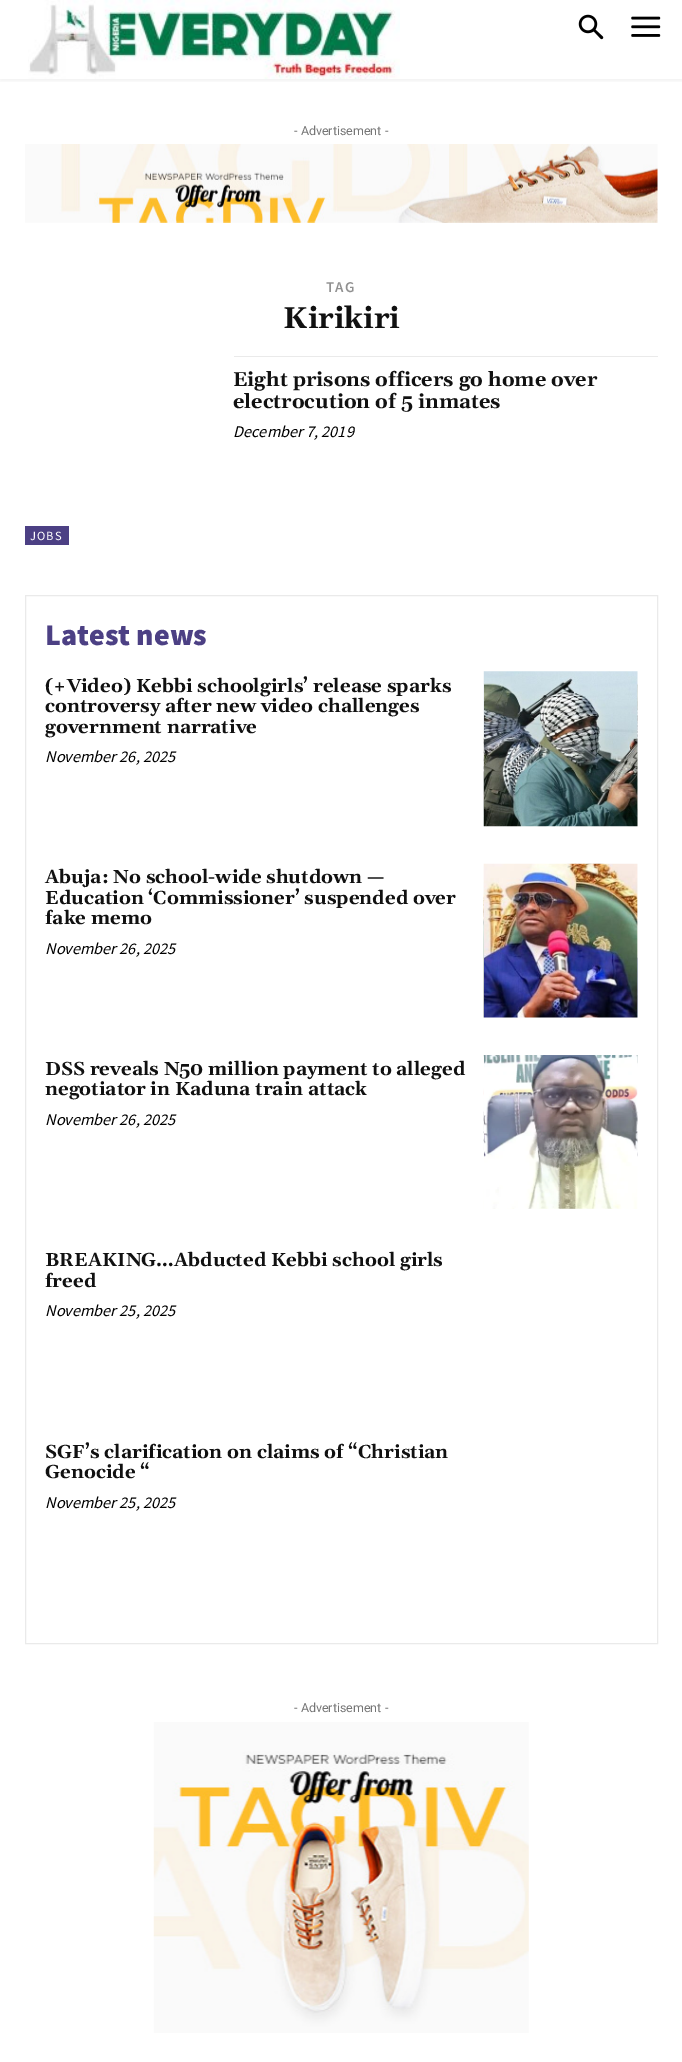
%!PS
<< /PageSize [682 2062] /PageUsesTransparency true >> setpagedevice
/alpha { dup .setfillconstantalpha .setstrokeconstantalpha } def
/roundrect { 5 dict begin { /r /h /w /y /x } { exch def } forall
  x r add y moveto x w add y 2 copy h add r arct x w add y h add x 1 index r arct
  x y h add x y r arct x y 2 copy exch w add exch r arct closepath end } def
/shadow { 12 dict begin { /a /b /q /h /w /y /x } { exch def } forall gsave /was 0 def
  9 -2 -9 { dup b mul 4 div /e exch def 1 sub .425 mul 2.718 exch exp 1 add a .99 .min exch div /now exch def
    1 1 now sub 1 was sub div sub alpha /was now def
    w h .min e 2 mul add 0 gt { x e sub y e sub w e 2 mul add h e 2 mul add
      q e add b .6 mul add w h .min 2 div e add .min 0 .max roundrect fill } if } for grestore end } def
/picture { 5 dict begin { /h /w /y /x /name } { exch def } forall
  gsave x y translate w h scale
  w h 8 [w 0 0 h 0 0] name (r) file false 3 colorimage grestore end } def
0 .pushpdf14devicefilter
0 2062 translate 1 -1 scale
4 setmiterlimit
1 setgray
0 0 682 2062 rectfill
(img1.rgb) 28 0 372 79 picture
(img2.rgb) 578 14 26 26 picture
(img3.rgb) 631 16 30 21 picture
gsave
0 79 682 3 rectclip
0 setgray
0 3 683 78 0 2.5 0.06 shadow
grestore
/Roboto-Regular [12.5 0 0 -12.5 0 0] selectfont
0.463 setgray
294 135 moveto (- Advertisement -) show
(img4.rgb) 25 144 633 79 picture
/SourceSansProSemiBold-SemiBold [15 0 0 -15 0 0] selectfont
0.569 setgray
326 292 moveto 1 0 (TAG) ashow
/Gelasio-Bold [30 0 0 -30 0 0] selectfont
0.067 setgray
283 328 moveto (Kirikiri) show
0.918 setgray
234 356 424 1 rectfill
/Gelasio-Bold [20 0 0 -20 0 0] selectfont
0.067 setgray
233 386 moveto (Eight prisons officers go home over) show
233 408 moveto (electrocution of 5 inmates) show
/SourceSansPro-Italic [16.25 0 0 -16.25 0 0] selectfont
0 setgray
233 437 moveto (December 7, 2019) show
0.298 0.251 0.518 setrgbcolor
25 526 44 19 rectfill
/SourceSansPro-Regular [12.5 0 0 -12.5 0 0] selectfont
1 setgray
30 540 moveto 1 0 (JOBS) ashow
0.918 setgray
25.5 595.5 632 1048 rectstroke
/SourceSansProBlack-Black [30 0 0 -30 0 0] selectfont
0.298 0.251 0.518 setrgbcolor
45 645 moveto (Latest news) show
/Gelasio-Bold [18.75 0 0 -18.75 0 0] selectfont
0.067 setgray
45 692 moveto (\(+Video\) Kebbi schoolgirls’ release sparks) show
45 712 moveto (controversy after new video challenges) show
45 733 moveto (government narrative) show
/SourceSansPro-Italic [16.25 0 0 -16.25 0 0] selectfont
0 setgray
45 762 moveto (November 26, 2025) show
(img5.rgb) 483 671 155 156 picture
/Gelasio-Bold [18.75 0 0 -18.75 0 0] selectfont
0.067 setgray
45 883 moveto (Abuja: No school-wide shutdown —) show
45 904 moveto (Education ‘Commissioner’ suspended over) show
45 924 moveto (fake memo) show
/SourceSansPro-Italic [16.25 0 0 -16.25 0 0] selectfont
0 setgray
45 954 moveto (November 26, 2025) show
(img6.rgb) 483 863 155 155 picture
/Gelasio-Bold [18.75 0 0 -18.75 0 0] selectfont
0.067 setgray
45 1075 moveto (DSS reveals N50 million payment to alleged) show
45 1095 moveto (negotiator in Kaduna train attack) show
/SourceSansPro-Italic [16.25 0 0 -16.25 0 0] selectfont
0 setgray
45 1125 moveto (November 26, 2025) show
(img7.rgb) 483 1055 155 154 picture
/Gelasio-Bold [18.75 0 0 -18.75 0 0] selectfont
0.067 setgray
45 1266 moveto (BREAKING…Abducted Kebbi school girls) show
45 1287 moveto (freed) show
/SourceSansPro-Italic [16.25 0 0 -16.25 0 0] selectfont
0 setgray
45 1316 moveto (November 25, 2025) show
/Gelasio-Bold [18.75 0 0 -18.75 0 0] selectfont
0.067 setgray
45 1458 moveto (SGF’s clarification on claims of “Christian) show
45 1478 moveto (Genocide “) show
/SourceSansPro-Italic [16.25 0 0 -16.25 0 0] selectfont
0 setgray
45 1508 moveto (November 25, 2025) show
/Roboto-Regular [12.5 0 0 -12.5 0 0] selectfont
0.463 setgray
294 1712 moveto (- Advertisement -) show
(img8.rgb) 153 1722 376 311 picture
.poppdf14devicefilter showpage
